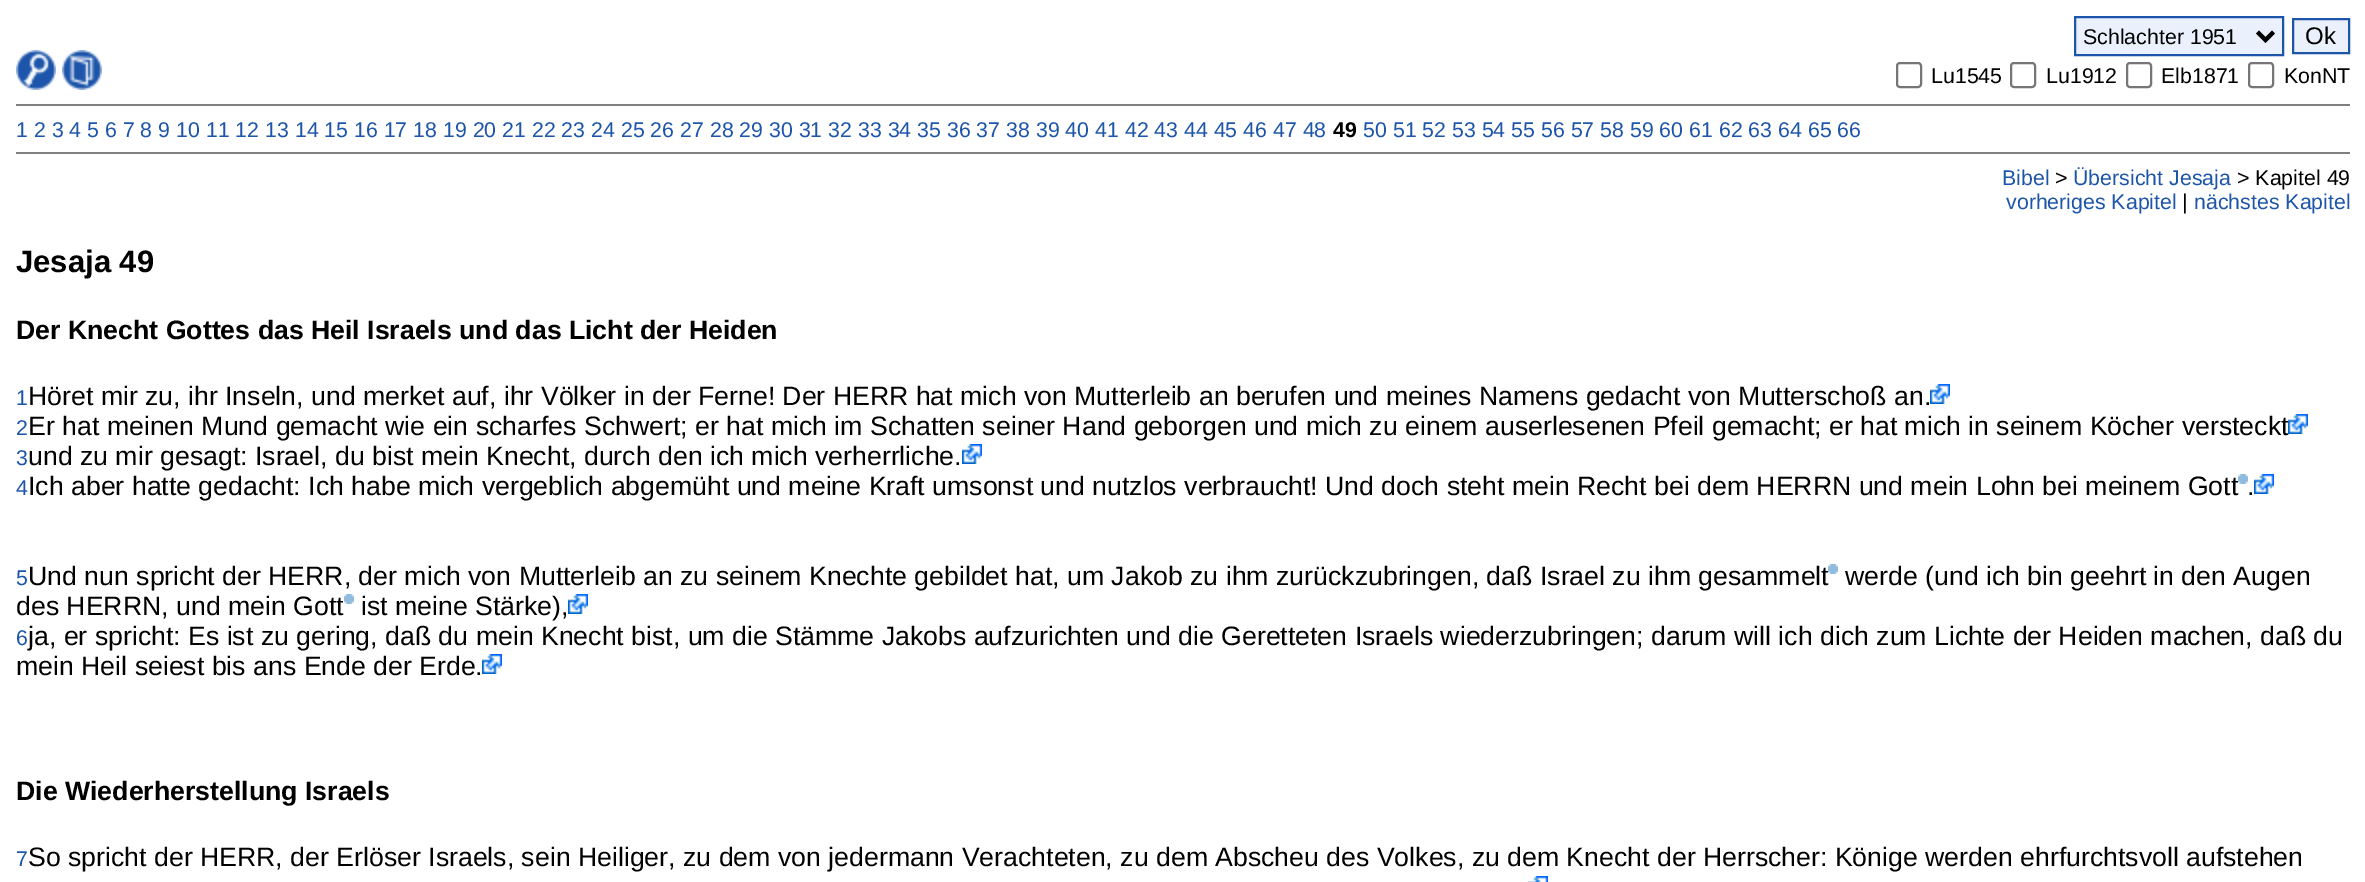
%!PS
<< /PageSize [2365 882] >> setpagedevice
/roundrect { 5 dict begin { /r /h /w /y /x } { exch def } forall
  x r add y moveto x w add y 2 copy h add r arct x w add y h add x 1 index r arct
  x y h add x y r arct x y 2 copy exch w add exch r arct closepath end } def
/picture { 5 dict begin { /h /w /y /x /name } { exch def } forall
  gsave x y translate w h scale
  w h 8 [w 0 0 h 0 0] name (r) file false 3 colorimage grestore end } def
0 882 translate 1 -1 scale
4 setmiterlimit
1 setgray
0 0 2365 882 rectfill
(img1.rgb) 16 50 40 40 picture
(img2.rgb) 62 50 40 40 picture
0.922 0.945 0.988 setrgbcolor
newpath 2075 17 moveto 2283 17 lineto 2283 55 lineto 2075 55 lineto closepath gsave fill grestore
0.11 0.333 0.667 setrgbcolor
2 setlinewidth
stroke
0 setgray
4 setlinewidth
newpath 2257.5 32 moveto 2265.5 40 lineto 2273.5 32 lineto stroke
/LiberationSans-Regular [21.33 0 0 -21.33 0 0] selectfont
2083 44 moveto (Schlachter 1951) show
0.922 0.945 0.988 setrgbcolor
newpath 2293 19 moveto 2349 19 lineto 2349 53 lineto 2293 53 lineto closepath gsave fill grestore
0.11 0.333 0.667 setrgbcolor
2 setlinewidth
stroke
/LiberationSans-Regular [24 0 0 -24 0 0] selectfont
0 setgray
2305 44 moveto (Ok) show
0.463 setgray
1897 63 24 24 3 roundrect stroke
/LiberationSans-Regular [21.33 0 0 -21.33 0 0] selectfont
0 setgray
1931 83 moveto (Lu1545) show
0.463 setgray
2011 63 24 24 3 roundrect stroke
0 setgray
2046 83 moveto (Lu1912) show
0.463 setgray
2127 63 24 24 3 roundrect stroke
0 setgray
2161 83 moveto (Elb1871) show
0.463 setgray
2249 63 24 24 3 roundrect stroke
0 setgray
2284 83 moveto (KonNT) show
0.502 setgray
16 104 2334 2 rectfill
0.11 0.333 0.667 setrgbcolor
16 137 moveto (1 2 3 4 5 6 7 8 9 10 11 12 13 14 15 16 17 18 19 20 21 22 23 24 25 26 27 28 29 30 31 32 33 34 35 36 37 38 39 40 41 42 43 44 45 46 47 48) show
/LiberationSans-Bold [21.33 0 0 -21.33 0 0] selectfont
0 setgray
1333 137 moveto (49) show
/LiberationSans-Regular [21.33 0 0 -21.33 0 0] selectfont
0.11 0.333 0.667 setrgbcolor
1363 137 moveto (50 51 52 53 54 55 56 57 58 59 60 61 62 63 64 65 66) show
0.502 setgray
16 152 2334 2 rectfill
0.11 0.333 0.667 setrgbcolor
2002 185 moveto (Bibel) show
0 setgray
2055 185 moveto (>) show
0.11 0.333 0.667 setrgbcolor
2073 185 moveto (Übersicht Jesaja) show
0 setgray
2237 185 moveto (> Kapitel 49) show
0.11 0.333 0.667 setrgbcolor
2006 209 moveto (vorheriges Kapitel) show
0 setgray
2182 209 moveto (|) show
0.11 0.333 0.667 setrgbcolor
2194 209 moveto (nächstes Kapitel) show
/LiberationSans-Bold [31 0 0 -31 0 0] selectfont
0 setgray
16 272 moveto (Jesaja 49) show
/LiberationSans-Bold [26.67 0 0 -26.67 0 0] selectfont
16 339 moveto (Der Knecht Gottes das Heil Israels und das Licht der Heiden) show
/LiberationSans-Regular [21.33 0 0 -21.33 0 0] selectfont
0.11 0.333 0.667 setrgbcolor
16 405 moveto (1) show
/LiberationSans-Regular [26.67 0 0 -26.67 0 0] selectfont
0 setgray
28 405 moveto (Höret mir zu, ihr Inseln, und merket auf, ihr Völker in der Ferne! Der HERR hat mich von Mutterleib an berufen und meines Namens gedacht von Mutterschoß an.) show
(img3.rgb) 1930 384 20 20 picture
/LiberationSans-Regular [21.33 0 0 -21.33 0 0] selectfont
0.11 0.333 0.667 setrgbcolor
16 435 moveto (2) show
/LiberationSans-Regular [26.67 0 0 -26.67 0 0] selectfont
0 setgray
28 435 moveto (Er hat meinen Mund gemacht wie ein scharfes Schwert; er hat mich im Schatten seiner Hand geborgen und mich zu einem auserlesenen Pfeil gemacht; er hat mich in seinem Köcher versteckt) show
(img3.rgb) 2288 414 20 20 picture
/LiberationSans-Regular [21.33 0 0 -21.33 0 0] selectfont
0.11 0.333 0.667 setrgbcolor
16 465 moveto (3) show
/LiberationSans-Regular [26.67 0 0 -26.67 0 0] selectfont
0 setgray
28 465 moveto (und zu mir gesagt: Israel, du bist mein Knecht, durch den ich mich verherrliche.) show
(img3.rgb) 962 444 20 20 picture
/LiberationSans-Regular [21.33 0 0 -21.33 0 0] selectfont
0.11 0.333 0.667 setrgbcolor
16 495 moveto (4) show
/LiberationSans-Regular [26.67 0 0 -26.67 0 0] selectfont
0 setgray
28 495 moveto (Ich aber hatte gedacht: Ich habe mich vergeblich abgemüht und meine Kraft umsonst und nutzlos verbraucht! Und doch steht mein Recht bei dem HERRN und mein Lohn bei meinem Gott) show
(img4.rgb) 2238 474 10 10 picture
2247 495 moveto (.) show
(img3.rgb) 2254 474 20 20 picture
/LiberationSans-Regular [21.33 0 0 -21.33 0 0] selectfont
0.11 0.333 0.667 setrgbcolor
16 585 moveto (5) show
/LiberationSans-Regular [26.67 0 0 -26.67 0 0] selectfont
0 setgray
28 585 moveto (Und nun spricht der HERR, der mich von Mutterleib an zu seinem Knechte gebildet hat, um Jakob zu ihm zurückzubringen, daß Israel zu ihm gesammelt) show
(img4.rgb) 1828 564 10 10 picture
1845 585 moveto (werde \(und ich bin geehrt in den Augen) show
16 615 moveto (des HERRN, und mein Gott) show
(img4.rgb) 344 594 10 10 picture
361 615 moveto (ist meine Stärke\),) show
(img3.rgb) 568 594 20 20 picture
/LiberationSans-Regular [21.33 0 0 -21.33 0 0] selectfont
0.11 0.333 0.667 setrgbcolor
16 645 moveto (6) show
/LiberationSans-Regular [26.67 0 0 -26.67 0 0] selectfont
0 setgray
28 645 moveto (ja, er spricht: Es ist zu gering, daß du mein Knecht bist, um die Stämme Jakobs aufzurichten und die Geretteten Israels wiederzubringen; darum will ich dich zum Lichte der Heiden machen, daß du) show
16 675 moveto (mein Heil seiest bis ans Ende der Erde.) show
(img3.rgb) 482 654 20 20 picture
/LiberationSans-Bold [26.67 0 0 -26.67 0 0] selectfont
16 800 moveto (Die Wiederherstellung Israels) show
/LiberationSans-Regular [21.33 0 0 -21.33 0 0] selectfont
0.11 0.333 0.667 setrgbcolor
16 866 moveto (7) show
/LiberationSans-Regular [26.67 0 0 -26.67 0 0] selectfont
0 setgray
28 866 moveto (So spricht der HERR, der Erlöser Israels, sein Heiliger, zu dem von jedermann Verachteten, zu dem Abscheu des Volkes, zu dem Knecht der Herrscher: Könige werden ehrfurchtsvoll aufstehen) show
(img5.rgb) 1528 876 20 6 picture
showpage
